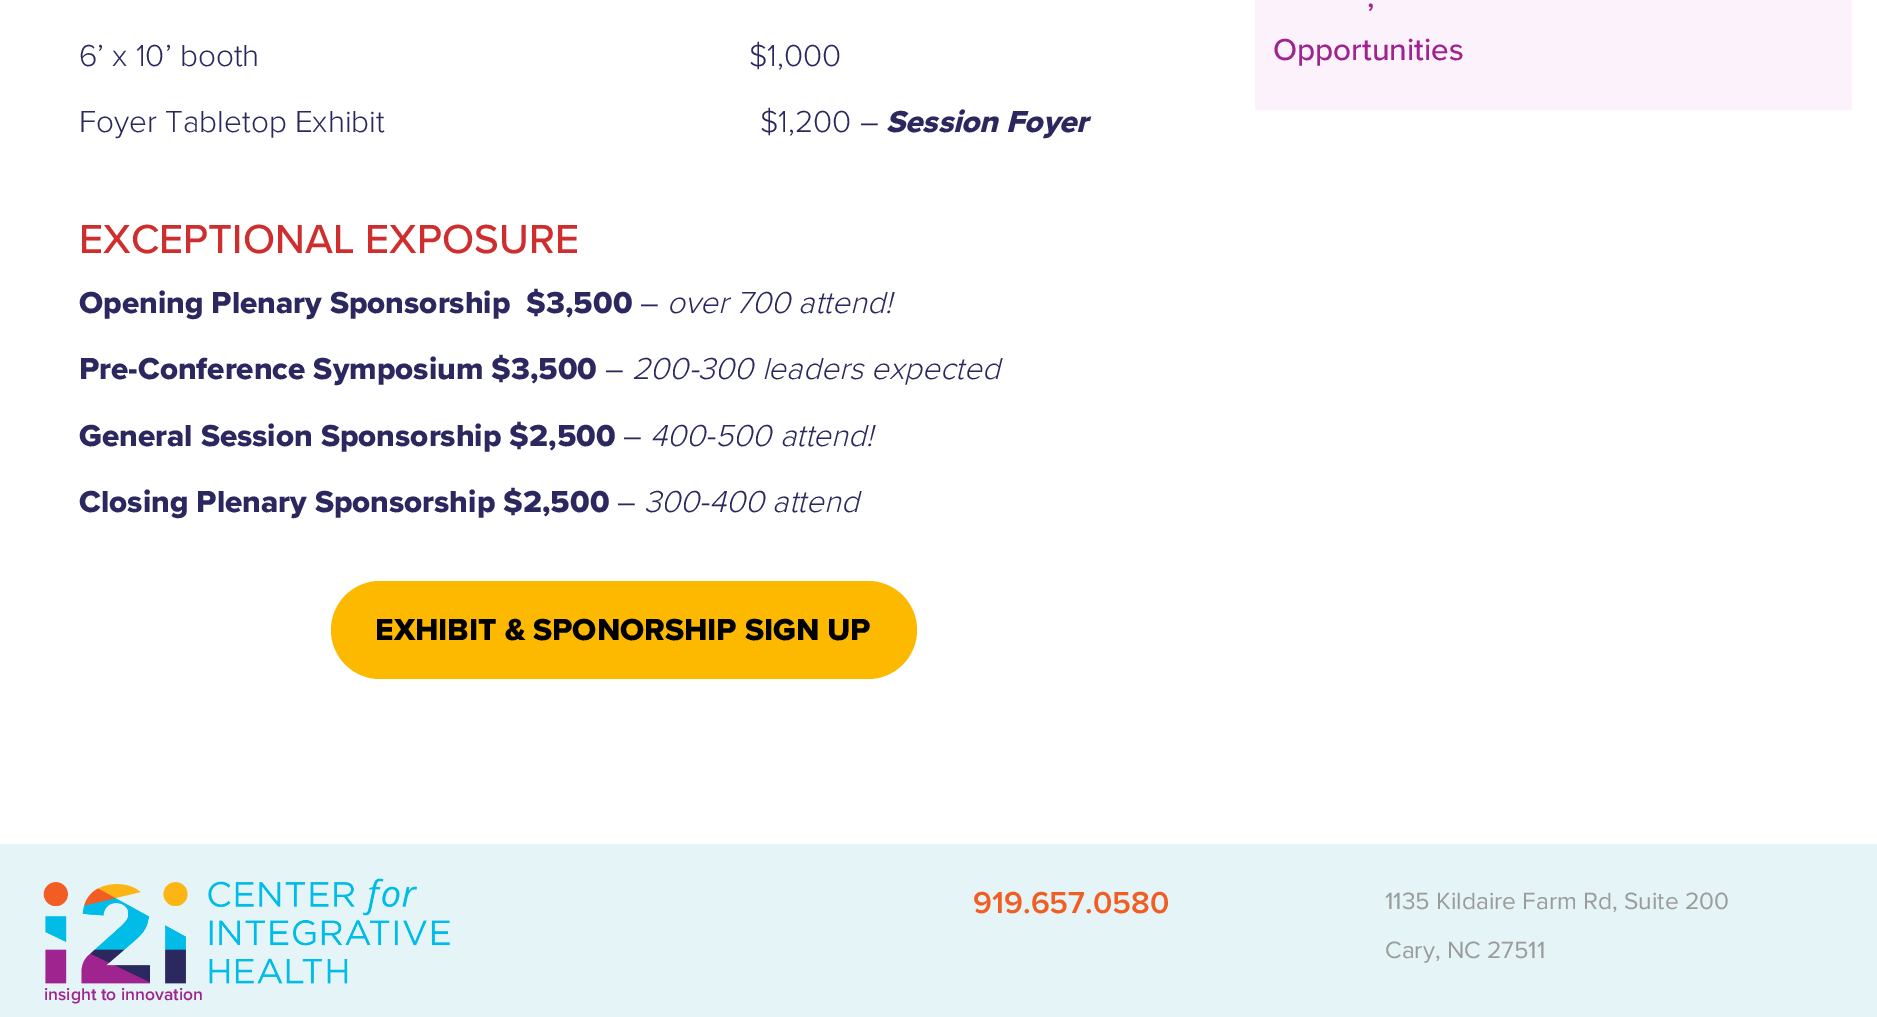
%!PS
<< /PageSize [1877 1017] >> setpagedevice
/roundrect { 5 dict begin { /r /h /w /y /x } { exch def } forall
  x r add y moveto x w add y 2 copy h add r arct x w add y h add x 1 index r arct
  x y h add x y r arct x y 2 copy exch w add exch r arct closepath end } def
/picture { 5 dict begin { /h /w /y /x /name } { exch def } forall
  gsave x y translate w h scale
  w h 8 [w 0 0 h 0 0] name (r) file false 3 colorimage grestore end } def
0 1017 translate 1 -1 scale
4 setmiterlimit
1 setgray
0 0 1877 1017 rectfill
0.988 0.949 0.984 setrgbcolor
1255 0 597 110 rectfill
/ProximaNova-Medium [31.5 0 0 -31.5 0 0] selectfont
0.624 0.141 0.561 setrgbcolor
1367 7 moveto (,) show
1273 60 moveto (Opportunities) show
/ProximaNova-Light [31.5 0 0 -31.5 0 0] selectfont
0.165 0.157 0.373 setrgbcolor
79 66 moveto (6’ x 10’ booth                                                            $1,000) show
79 132 moveto (Foyer Tabletop Exhibit                                              $1,200 –) show
/ProximaNova-ExtraBoldItalic [31.5 0 0 -31.5 0 0] selectfont
886 132 moveto (Session Foyer) show
/ProximaNova-Medium [42 0 0 -42 0 0] selectfont
0.812 0.18 0.18 setrgbcolor
79 253 moveto (EXCEPTIONAL EXPOSURE) show
/ProximaNova-ExtraBold [31.5 0 0 -31.5 0 0] selectfont
0.165 0.157 0.373 setrgbcolor
79 313 moveto (Opening Plenary Sponsorship  $3,500) show
/ProximaNova-Light [31.5 0 0 -31.5 0 0] selectfont
640 313 moveto (–) show
/ProximaNova-LightItalic [31.5 0 0 -31.5 0 0] selectfont
667 313 moveto (over 700 attend!) show
/ProximaNova-ExtraBold [31.5 0 0 -31.5 0 0] selectfont
79 379 moveto (Pre-Conference Symposium $3,500) show
/ProximaNova-Light [31.5 0 0 -31.5 0 0] selectfont
605 379 moveto (–) show
/ProximaNova-LightItalic [31.5 0 0 -31.5 0 0] selectfont
632 379 moveto (200-300 leaders expected) show
/ProximaNova-ExtraBold [31.5 0 0 -31.5 0 0] selectfont
79 446 moveto (General Session Sponsorship $2,500) show
/ProximaNova-Light [31.5 0 0 -31.5 0 0] selectfont
623 446 moveto (–) show
/ProximaNova-LightItalic [31.5 0 0 -31.5 0 0] selectfont
650 446 moveto (400-500 attend!) show
/ProximaNova-ExtraBold [31.5 0 0 -31.5 0 0] selectfont
79 512 moveto (Closing Plenary Sponsorship $2,500) show
/ProximaNova-Light [31.5 0 0 -31.5 0 0] selectfont
617 512 moveto (–) show
/ProximaNova-LightItalic [31.5 0 0 -31.5 0 0] selectfont
644 512 moveto (300-400 attend) show
0.988 0.725 0 setrgbcolor
331 581 586 98 49 roundrect fill
/ProximaNova-ExtraBold [31.5 0 0 -31.5 0 0] selectfont
0 setgray
375 640 moveto (EXHIBIT & SPONORSHIP SIGN UP) show
0.898 0.957 0.969 setrgbcolor
0 844 1877 173 rectfill
/ProximaNova-SemiBold [31.5 0 0 -31.5 0 0] selectfont
0.945 0.365 0.133 setrgbcolor
973 913 moveto (919.657.0580) show
/ProximaNova-Regular [24.5 0 0 -24.5 0 0] selectfont
0.608 setgray
1385 909 moveto (1135 Kildaire Farm Rd, Suite 200) show
1385 958 moveto (Cary, NC 27511) show
(img1.rgb) 43 878 407 106 picture
/ProximaNova-SemiBold [17.5 0 0 -17.5 0 0] selectfont
0.624 0.141 0.561 setrgbcolor
44 1000 moveto (insight to innovation) show
showpage
